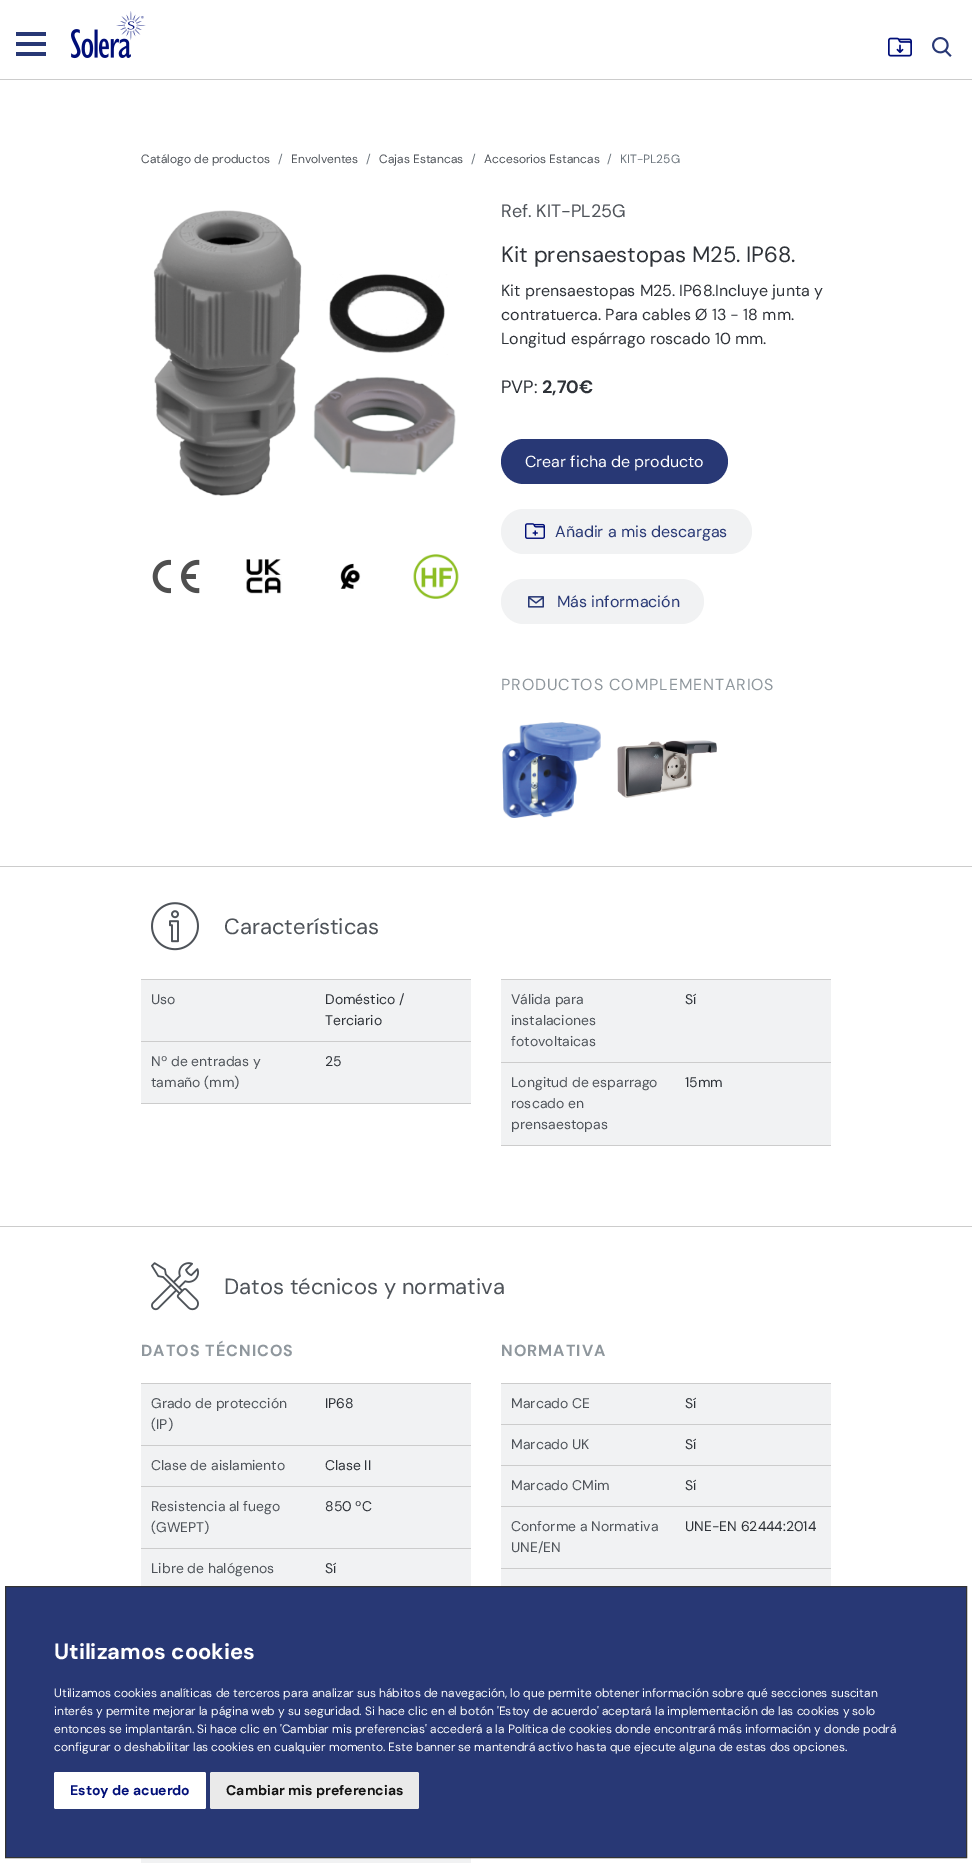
%!PS
<< /PageSize [972 1863] >> setpagedevice
/roundrect { 5 dict begin { /r /h /w /y /x } { exch def } forall
  x r add y moveto x w add y 2 copy h add r arct x w add y h add x 1 index r arct
  x y h add x y r arct x y 2 copy exch w add exch r arct closepath end } def
/picture { 5 dict begin { /h /w /y /x /name } { exch def } forall
  gsave x y translate w h scale
  w h 8 [w 0 0 h 0 0] name (r) file false 3 colorimage grestore end } def
0 1863 translate 1 -1 scale
4 setmiterlimit
1 setgray
0 0 972 1863 rectfill
0.8 setgray
0 79 972 1 rectfill
0.157 0.22 0.459 setrgbcolor
16 32 30 4 rectfill
16 42 30 4 rectfill
16 52 30 4 rectfill
(img1.rgb) 71 11 75 48 picture
(img2.rgb) 888 37 24 20 picture
(img3.rgb) 932 37 20 20 picture
/DMSans-Regular [12 0 0 -12 0 0] selectfont
0.306 0.325 0.349 setrgbcolor
141 163 moveto (Catálogo de productos) show
0.424 0.459 0.49 setrgbcolor
278 163 moveto (/) show
0.306 0.325 0.349 setrgbcolor
291 163 moveto (Envolventes) show
0.424 0.459 0.49 setrgbcolor
366 163 moveto (/) show
0.306 0.325 0.349 setrgbcolor
379 163 moveto (Cajas Estancas) show
0.424 0.459 0.49 setrgbcolor
471 163 moveto (/) show
0.306 0.325 0.349 setrgbcolor
484 163 moveto (Accesorios Estancas) show
0.424 0.459 0.49 setrgbcolor
607 163 moveto (/) show
620 163 moveto (KIT-PL25G) show
(img4.rgb) 153 210 303 286 picture
(img5.rgb) 152 559 48 35 picture
(img6.rgb) 246 559 36 35 picture
(img7.rgb) 340 563 21 26 picture
(img8.rgb) 413 554 46 45 picture
/DMSans-Regular [18 0 0 -18 0 0] selectfont
0.306 0.325 0.349 setrgbcolor
501 217 moveto (Ref. KIT-PL25G) show
/DMSans-Regular [22 0 0 -22 0 0] selectfont
0.18 0.196 0.22 setrgbcolor
501 262 moveto (Kit prensaestopas M25. IP68.) show
/DMSans-Regular [16 0 0 -16 0 0] selectfont
501 296 moveto (Kit prensaestopas M25. IP68.Incluye junta y) show
501 320 moveto (contratuerca. Para cables Ø 13 - 18 mm.) show
501 344 moveto (Longitud espárrago roscado 10 mm.) show
/DMSans-Regular [18 0 0 -18 0 0] selectfont
501 393 moveto (PVP:) show
/DMSans-Bold [18 0 0 -18 0 0] selectfont
542 393 moveto (2,70€) show
0.157 0.22 0.459 setrgbcolor
501 439 227 45 22.5 roundrect fill
/DMSans-Regular [16 0 0 -16 0 0] selectfont
1 setgray
525 467 moveto (Crear ficha de producto) show
0.945 0.949 0.953 setrgbcolor
501 509 251 45 22.5 roundrect fill
(img9.rgb) 525 523 20 16 picture
0.157 0.22 0.459 setrgbcolor
555 537 moveto (Añadir a mis descargas) show
0.945 0.949 0.953 setrgbcolor
501 579 203 45 22.5 roundrect fill
(img10.rgb) 528 596 16 12 picture
0.157 0.22 0.459 setrgbcolor
557 607 moveto (Más información) show
0.561 0.592 0.616 setrgbcolor
501 690 moveto 0.9 0 (PRODUCTOS COMPLEMENTARIOS) ashow
(img11.rgb) 502 722 99 96 picture
(img12.rgb) 617 740 100 58 picture
0.8 setgray
0 866 972 1 rectfill
0 1226 972 1 rectfill
(img13.rgb) 151 902 48 49 picture
/DMSans-Regular [22 0 0 -22 0 0] selectfont
0.306 0.325 0.349 setrgbcolor
224 934 moveto (Características) show
0.945 0.949 0.953 setrgbcolor
141 980 330 61 rectfill
0.8 setgray
141 979 330 1 rectfill
/DMSans-Regular [14 0 0 -14 0 0] selectfont
0.306 0.325 0.349 setrgbcolor
151 1004 moveto (Uso) show
0.18 0.196 0.22 setrgbcolor
325 1004 moveto (Doméstico /) show
325 1025 moveto (Terciario) show
0.945 0.949 0.953 setrgbcolor
501 980 330 82 rectfill
0.8 setgray
501 979 330 1 rectfill
0.306 0.325 0.349 setrgbcolor
511 1004 moveto (Válida para) show
511 1025 moveto (instalaciones) show
511 1046 moveto (fotovoltaicas) show
0.18 0.196 0.22 setrgbcolor
685 1004 moveto (Sí) show
0.945 0.949 0.953 setrgbcolor
141 1042 330 61 rectfill
0.8 setgray
141 1041 330 1 rectfill
0.306 0.325 0.349 setrgbcolor
151 1066 moveto (Nº de entradas y) show
151 1087 moveto (tamaño \(mm\)) show
0.18 0.196 0.22 setrgbcolor
325 1066 moveto (25) show
0.8 setgray
141 1103 330 1 rectfill
0.945 0.949 0.953 setrgbcolor
501 1063 330 82 rectfill
0.8 setgray
501 1062 330 1 rectfill
0.306 0.325 0.349 setrgbcolor
511 1087 moveto (Longitud de esparrago) show
511 1108 moveto (roscado en) show
511 1129 moveto (prensaestopas) show
0.18 0.196 0.22 setrgbcolor
685 1087 moveto (15mm) show
0.8 setgray
501 1145 330 1 rectfill
(img14.rgb) 151 1262 48 49 picture
/DMSans-Regular [22 0 0 -22 0 0] selectfont
0.306 0.325 0.349 setrgbcolor
224 1294 moveto (Datos técnicos y normativa) show
/DMSans-Bold [16 0 0 -16 0 0] selectfont
0.561 0.592 0.616 setrgbcolor
141 1356 moveto 1 0 (DATOS TÉCNICOS) ashow
0.945 0.949 0.953 setrgbcolor
141 1384 330 61 rectfill
0.8 setgray
141 1383 330 1 rectfill
/DMSans-Regular [14 0 0 -14 0 0] selectfont
0.306 0.325 0.349 setrgbcolor
151 1408 moveto (Grado de protección) show
151 1429 moveto (\(IP\)) show
0.18 0.196 0.22 setrgbcolor
325 1408 moveto (IP68) show
0.945 0.949 0.953 setrgbcolor
141 1446 330 40 rectfill
0.8 setgray
141 1445 330 1 rectfill
0.306 0.325 0.349 setrgbcolor
151 1470 moveto (Clase de aislamiento) show
0.18 0.196 0.22 setrgbcolor
325 1470 moveto (Clase II) show
0.945 0.949 0.953 setrgbcolor
141 1487 330 61 rectfill
0.8 setgray
141 1486 330 1 rectfill
0.306 0.325 0.349 setrgbcolor
151 1511 moveto (Resistencia al fuego) show
151 1532 moveto (\(GWEPT\)) show
0.18 0.196 0.22 setrgbcolor
325 1511 moveto (850 ºC) show
0.945 0.949 0.953 setrgbcolor
141 1549 330 37 rectfill
0.8 setgray
141 1548 330 1 rectfill
0.306 0.325 0.349 setrgbcolor
151 1573 moveto (Libre de halógenos) show
0.18 0.196 0.22 setrgbcolor
325 1573 moveto (Sí) show
/DMSans-Bold [16 0 0 -16 0 0] selectfont
0.561 0.592 0.616 setrgbcolor
501 1356 moveto 1 0 (NORMATIVA) ashow
0.945 0.949 0.953 setrgbcolor
501 1384 330 40 rectfill
0.8 setgray
501 1383 330 1 rectfill
/DMSans-Regular [14 0 0 -14 0 0] selectfont
0.306 0.325 0.349 setrgbcolor
511 1408 moveto (Marcado CE) show
0.18 0.196 0.22 setrgbcolor
685 1408 moveto (Sí) show
0.945 0.949 0.953 setrgbcolor
501 1425 330 40 rectfill
0.8 setgray
501 1424 330 1 rectfill
0.306 0.325 0.349 setrgbcolor
511 1449 moveto (Marcado UK) show
0.18 0.196 0.22 setrgbcolor
685 1449 moveto (Sí) show
0.945 0.949 0.953 setrgbcolor
501 1466 330 40 rectfill
0.8 setgray
501 1465 330 1 rectfill
0.306 0.325 0.349 setrgbcolor
511 1490 moveto (Marcado CMim) show
0.18 0.196 0.22 setrgbcolor
685 1490 moveto (Sí) show
0.945 0.949 0.953 setrgbcolor
501 1507 330 61 rectfill
0.8 setgray
501 1506 330 1 rectfill
0.306 0.325 0.349 setrgbcolor
511 1531 moveto (Conforme a Normativa) show
511 1552 moveto (UNE/EN) show
0.18 0.196 0.22 setrgbcolor
685 1531 moveto (UNE-EN 62444:2014) show
0.945 0.949 0.953 setrgbcolor
501 1569 330 17 rectfill
0.8 setgray
501 1568 330 1 rectfill
0.945 0.949 0.953 setrgbcolor
141 1858 330 5 rectfill
0.157 0.22 0.459 setrgbcolor
newpath 5.5 1586.5 moveto 966.5 1586.5 lineto 966.5 1857.5 lineto 5.5 1857.5 lineto closepath gsave fill grestore
0.2 setgray
stroke
/DMSans-Bold [22 0 0 -22 0 0] selectfont
1 setgray
54 1659 moveto (Utilizamos cookies) show
/DMSans-Regular [12 0 0 -12 0 0] selectfont
54 1697 moveto (Utilizamos cookies analíticas de terceros para analizar sus hábitos de navegación, lo que permite obtener información sobre qué secciones suscitan) show
54 1715 moveto (interés y permite mejorar la página web y su seguridad. Si hace clic en el botón 'Estoy de acuerdo' aceptará la implementación de las cookies y solo) show
54 1733 moveto (entonces se implantarán. Si hace clic en 'Cambiar mis preferencias' accederá a la Política de cookies donde encontrará más información y donde podrá) show
54 1751 moveto (configurar o deshabilitar las cookies en cualquier momento. Este banner se mantendrá activo hasta que ejecute alguna de estas dos opciones.) show
54 1772 152 37 2 roundrect fill
/DMSans-Bold [14 0 0 -14 0 0] selectfont
0 0.055 0.471 setrgbcolor
70 1795 moveto (Estoy de acuerdo) show
0.918 setgray
210 1772 209 37 2 roundrect fill
0.067 setgray
226 1795 moveto (Cambiar mis preferencias) show
showpage
